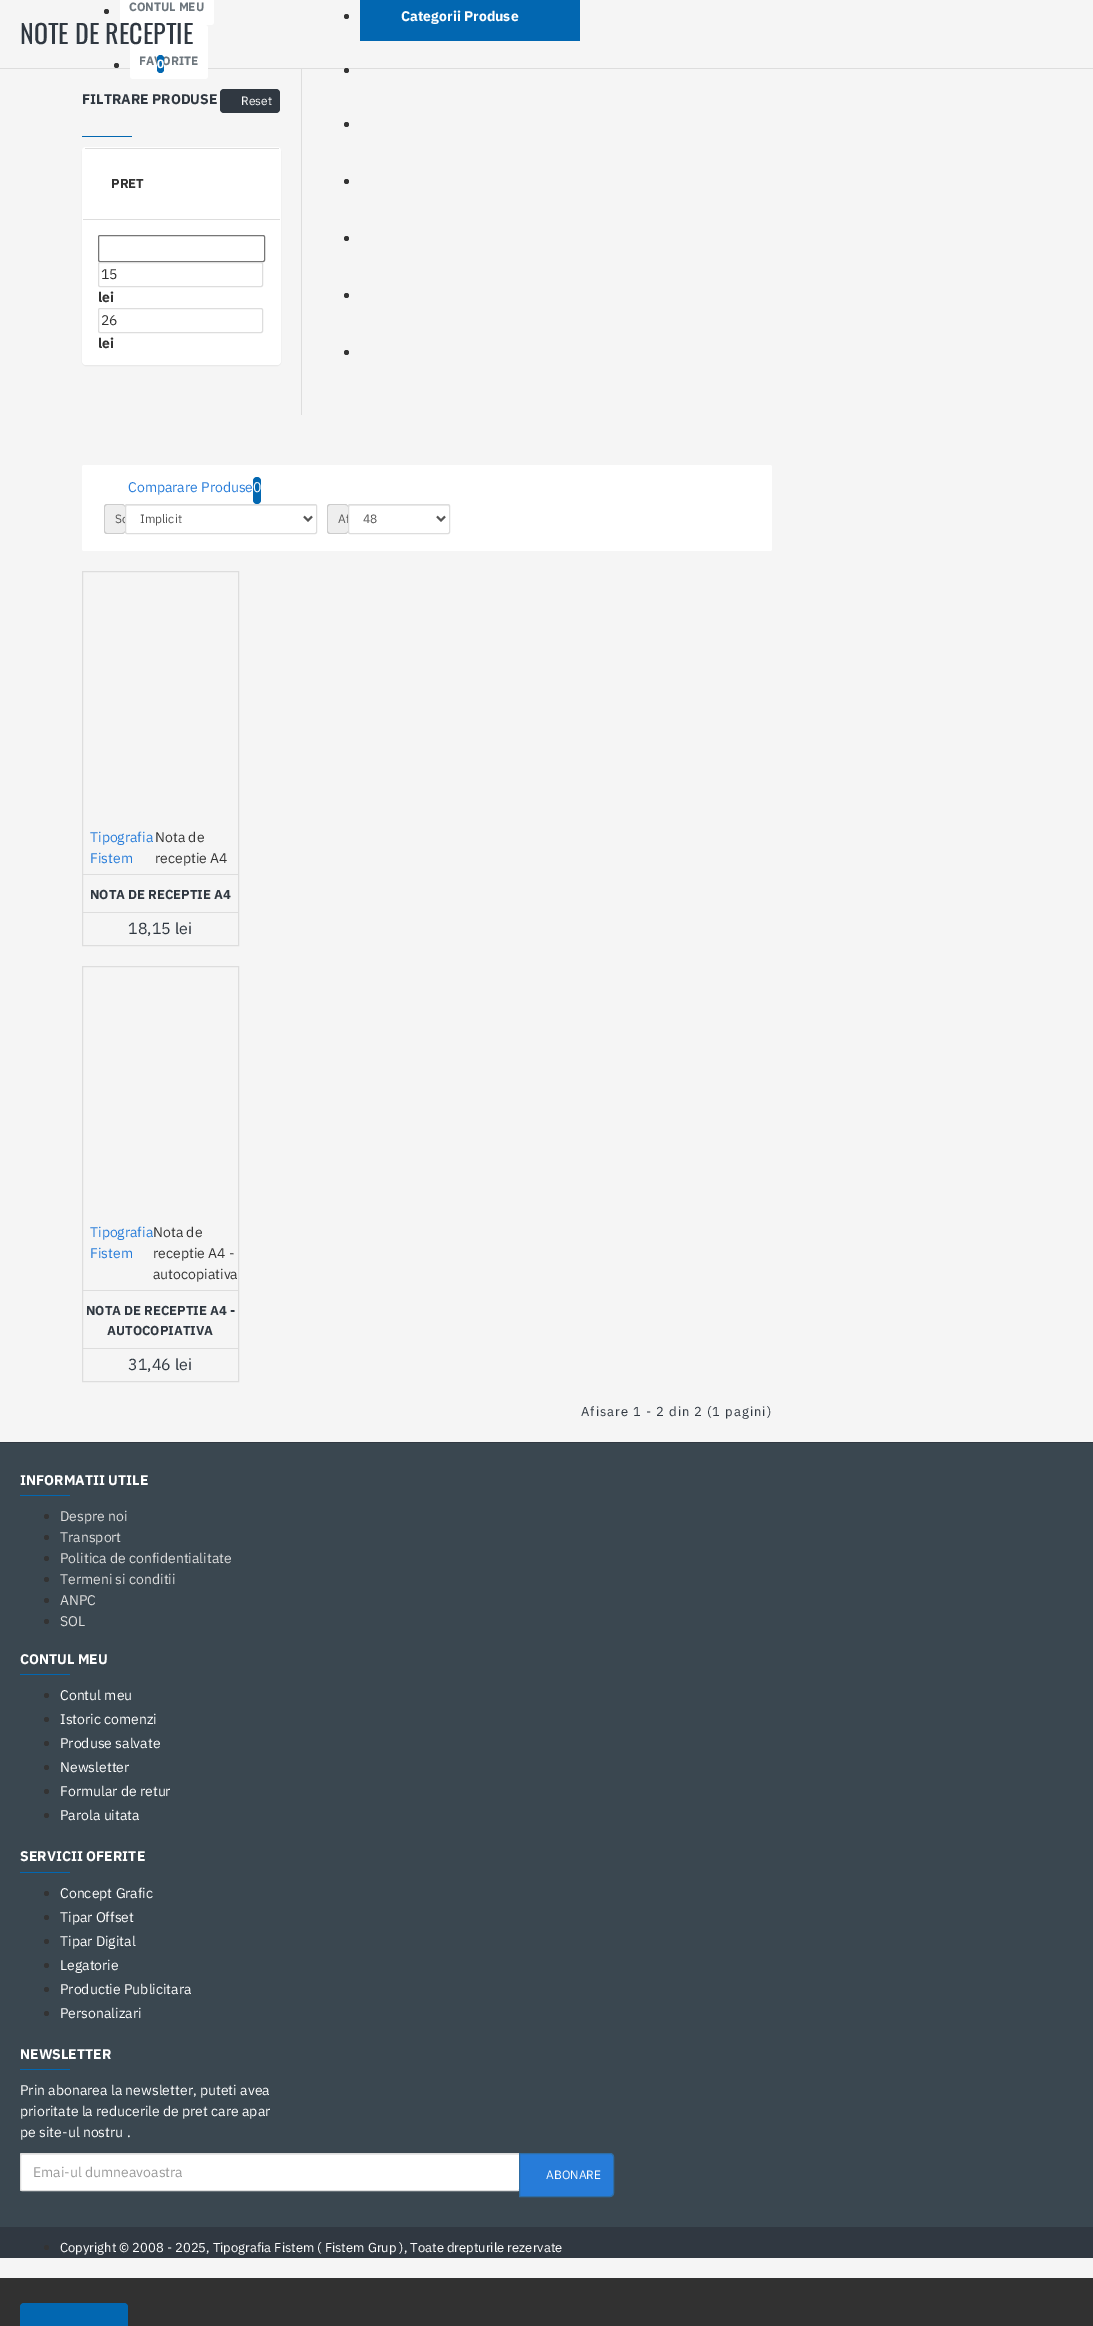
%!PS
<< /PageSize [1093 2326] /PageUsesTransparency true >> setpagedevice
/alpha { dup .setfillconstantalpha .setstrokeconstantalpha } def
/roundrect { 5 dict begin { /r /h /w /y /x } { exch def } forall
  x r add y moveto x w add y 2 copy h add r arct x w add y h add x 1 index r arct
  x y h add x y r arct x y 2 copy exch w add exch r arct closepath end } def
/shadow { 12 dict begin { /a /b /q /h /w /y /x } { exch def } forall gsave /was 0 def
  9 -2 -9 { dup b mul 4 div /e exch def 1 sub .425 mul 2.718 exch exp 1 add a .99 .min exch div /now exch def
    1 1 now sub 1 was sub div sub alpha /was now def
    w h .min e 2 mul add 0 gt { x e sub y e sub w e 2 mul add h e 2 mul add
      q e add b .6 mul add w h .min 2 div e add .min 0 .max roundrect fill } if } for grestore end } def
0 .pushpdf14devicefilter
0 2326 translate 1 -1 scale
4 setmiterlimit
0.961 setgray
0 0 1093 2326 rectfill
0.867 setgray
0 68 1093 1 rectfill
1 setgray
120 -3 94 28 3 roundrect fill
130 25 78 54 3 roundrect fill
/Oswald-Regular [26 0 0 -26 0 0] selectfont
0.188 0.22 0.255 setrgbcolor
20 44 moveto (NOTE DE RECEPTIE) show
0.2 setgray
newpath 106.5 11.5 2.5 0 360 arc closepath fill
/IBMPlexSans-Bold [12 0 0 -12 0 0] selectfont
0.427 0.463 0.49 setrgbcolor
129 11 moveto (CONTUL MEU) show
0.2 setgray
newpath 116.5 65.5 2.5 0 360 arc closepath fill
0.427 0.463 0.49 setrgbcolor
139 65 moveto (FAVORITE) show
0.008 0.404 0.694 setrgbcolor
157 55 7 18 3.5 roundrect fill
1 setgray
157 68 moveto (0) show
0.2 setgray
newpath 346.5 16.5 2.5 0 360 arc closepath fill
0.008 0.404 0.694 setrgbcolor
360 0 220 41 rectfill
/IBMPlexSans-Bold [14 0 0 -14 0 0] selectfont
1 setgray
401 21 moveto (Categorii Produse) show
0.2 setgray
newpath 346.5 70.5 2.5 0 360 arc closepath fill
newpath 346.5 124.5 2.5 0 360 arc closepath fill
newpath 346.5 181.5 2.5 0 360 arc closepath fill
newpath 346.5 238.5 2.5 0 360 arc closepath fill
newpath 346.5 295.5 2.5 0 360 arc closepath fill
newpath 346.5 352.5 2.5 0 360 arc closepath fill
0.867 setgray
301 69 1 346 rectfill
0.188 0.22 0.255 setrgbcolor
82 104 moveto (FILTRARE PRODUSE) show
220 89 60 24 4 roundrect fill
/IBMPlexSans-Regular [12 0 0 -12 0 0] selectfont
1 setgray
241 105 moveto (Reset) show
0.008 0.404 0.694 setrgbcolor
82 136 50 1 rectfill
0 setgray
82 148 199 218 4 0.5 0.05 shadow
1 setgray
82 147 199 218 4 roundrect fill
0.867 setgray
85 148 194 1 rectfill
/IBMPlexSans-Bold [13 0 0 -13 0 0] selectfont
0.2 setgray
111 188 moveto (PRET) show
0.867 setgray
83 219 197 1 rectfill
0.463 setgray
98.5 235.5 166 26 1.5 roundrect stroke
0.867 setgray
98.5 262.5 164 24 1.5 roundrect stroke
/IBMPlexSans-Regular [14 0 0 -14 0 0] selectfont
0.2 setgray
101 279 moveto (15) show
/IBMPlexSans-Bold [14 0 0 -14 0 0] selectfont
98 302 moveto (lei) show
0.867 setgray
98.5 308.5 164 24 1.5 roundrect stroke
/IBMPlexSans-Regular [14 0 0 -14 0 0] selectfont
0.2 setgray
101 325 moveto (26) show
/IBMPlexSans-Bold [14 0 0 -14 0 0] selectfont
98 348 moveto (lei) show
1 setgray
82 465 690 86 2 roundrect fill
/IBMPlexSans-Regular [14 0 0 -14 0 0] selectfont
0.153 0.486 0.851 setrgbcolor
128 492 moveto (Comparare Produse) show
0.008 0.404 0.694 setrgbcolor
253 477 8 27 4 roundrect fill
1 setgray
253 492 moveto (0) show
0.933 setgray
104 504 21 30 3 roundrect fill
0.8 setgray
newpath 107 504 moveto 122 504 lineto 123.5 504 125 505.5 125 507 curveto 125 531 lineto 125 532.5 123.5 534 122 534 curveto 107 534 lineto 105.5 534 104 532.5 104 531 curveto 104 507 lineto 104 505.5 105.5 504 107 504 curveto closepath 107 505 moveto 122 505 lineto 123.5 505 125 506 125 507 curveto 125 531 lineto 125 532 123.5 533 122 533 curveto 107 533 lineto 106 533 105 532 105 531 curveto 105 507 lineto 105 506 106 505 107 505 curveto closepath eofill
/IBMPlexSans-Regular [12 0 0 -12 0 0] selectfont
0.333 setgray
115 523 moveto (So) show
1 setgray
125 504 192 30 2 roundrect fill
0.925 setgray
newpath 127 506 moveto 316 506 lineto 315 505 lineto 126 505 lineto 126 507 lineto closepath fill
0.867 setgray
125.5 504.5 191 29 1.5 roundrect stroke
0.333 setgray
2 setlinewidth
newpath 304 516.5 moveto 308 520.5 lineto 312 516.5 lineto stroke
140 523 moveto (Implicit) show
0.933 setgray
327 504 21 30 3 roundrect fill
0.8 setgray
newpath 330 504 moveto 345 504 lineto 346.5 504 348 505.5 348 507 curveto 348 531 lineto 348 532.5 346.5 534 345 534 curveto 330 534 lineto 328.5 534 327 532.5 327 531 curveto 327 507 lineto 327 505.5 328.5 504 330 504 curveto closepath 330 505 moveto 345 505 lineto 346.5 505 348 506 348 507 curveto 348 531 lineto 348 532 346.5 533 345 533 curveto 330 533 lineto 329 533 328 532 328 531 curveto 328 507 lineto 328 506 329 505 330 505 curveto closepath eofill
0.333 setgray
338 523 moveto (Af) show
1 setgray
348 504 102 30 2 roundrect fill
0.925 setgray
newpath 350 506 moveto 448 506 lineto 449 506 449 506 449 507 curveto 449 506 449 505 448 505 curveto 350 505 lineto 349 505 349 506 349 507 curveto 349 506 349 506 350 506 curveto closepath fill
0.867 setgray
1 setlinewidth
348.5 504.5 101 29 1.5 roundrect stroke
0.333 setgray
2 setlinewidth
newpath 437 516.5 moveto 441 520.5 lineto 445 516.5 lineto stroke
363 523 moveto (48) show
0.867 setgray
1 setlinewidth
82.5 571.5 156 374 rectstroke
83 874 155 1 rectfill
/IBMPlexSans-Regular [14 0 0 -14 0 0] selectfont
0.153 0.486 0.851 setrgbcolor
90 842 moveto (Tipografia) show
90 863 moveto (Fistem) show
0.2 setgray
155 842 moveto (Nota de) show
155 863 moveto (receptie A4) show
/IBMPlexSans-Bold [13 0 0 -13 0 0] selectfont
0.188 0.22 0.255 setrgbcolor
90 899 moveto (NOTA DE RECEPTIE A4) show
0.867 setgray
83 912 155 1 rectfill
/IBMPlexSans-Regular [16 0 0 -16 0 0] selectfont
0.188 0.22 0.255 setrgbcolor
128 934 moveto (18,15 lei) show
0.867 setgray
82.5 966.5 156 415 rectstroke
83 1290 155 1 rectfill
/IBMPlexSans-Regular [14 0 0 -14 0 0] selectfont
0.153 0.486 0.851 setrgbcolor
90 1237 moveto (Tipografia) show
90 1258 moveto (Fistem) show
0.2 setgray
153 1237 moveto (Nota de) show
153 1258 moveto (receptie A4 -) show
153 1279 moveto (autocopiativa) show
/IBMPlexSans-Bold [13 0 0 -13 0 0] selectfont
0.188 0.22 0.255 setrgbcolor
86 1315 moveto (NOTA DE RECEPTIE A4 -) show
107 1335 moveto (AUTOCOPIATIVA) show
0.867 setgray
83 1348 155 1 rectfill
/IBMPlexSans-Regular [16 0 0 -16 0 0] selectfont
0.188 0.22 0.255 setrgbcolor
128 1370 moveto (31,46 lei) show
/IBMPlexSans-Regular [13 0 0 -13 0 0] selectfont
581 1416 moveto 1 0 (Afisare 1 - 2 din 2 \(1 pagini\)) ashow
0.227 0.278 0.314 setrgbcolor
0 1443 1093 784 rectfill
0.188 0.22 0.255 setrgbcolor
0 1442 1093 1 rectfill
/IBMPlexSans-Bold [14 0 0 -14 0 0] selectfont
1 setgray
20 1485 moveto (INFORMATII UTILE) show
0.008 0.404 0.694 setrgbcolor
20 1495 50 1 rectfill
0.2 setgray
newpath 46.5 1516.5 2.5 0 360 arc closepath fill
/IBMPlexSans-Regular [14 0 0 -14 0 0] selectfont
0.867 setgray
60 1521 moveto (Despre noi) show
0.2 setgray
newpath 46.5 1537.5 2.5 0 360 arc closepath fill
0.867 setgray
60 1542 moveto (Transport) show
0.2 setgray
newpath 46.5 1558.5 2.5 0 360 arc closepath fill
0.867 setgray
60 1563 moveto (Politica de confidentialitate) show
0.2 setgray
newpath 46.5 1579.5 2.5 0 360 arc closepath fill
0.867 setgray
60 1584 moveto (Termeni si conditii) show
0.2 setgray
newpath 46.5 1600.5 2.5 0 360 arc closepath fill
0.867 setgray
60 1605 moveto (ANPC) show
0.2 setgray
newpath 46.5 1621.5 2.5 0 360 arc closepath fill
0.867 setgray
60 1626 moveto (SOL) show
/IBMPlexSans-Bold [14 0 0 -14 0 0] selectfont
1 setgray
20 1664 moveto (CONTUL MEU) show
0.008 0.404 0.694 setrgbcolor
20 1674 50 1 rectfill
0.2 setgray
newpath 46.5 1695.5 2.5 0 360 arc closepath fill
/IBMPlexSans-Regular [14 0 0 -14 0 0] selectfont
1 setgray
60 1700 moveto (Contul meu) show
0.2 setgray
newpath 46.5 1719.5 2.5 0 360 arc closepath fill
1 setgray
60 1724 moveto (Istoric comenzi) show
0.2 setgray
newpath 46.5 1743.5 2.5 0 360 arc closepath fill
1 setgray
60 1748 moveto (Produse salvate) show
0.2 setgray
newpath 46.5 1767.5 2.5 0 360 arc closepath fill
1 setgray
60 1772 moveto (Newsletter) show
0.2 setgray
newpath 46.5 1791.5 2.5 0 360 arc closepath fill
1 setgray
60 1796 moveto (Formular de retur) show
0.2 setgray
newpath 46.5 1815.5 2.5 0 360 arc closepath fill
1 setgray
60 1820 moveto (Parola uitata) show
/IBMPlexSans-Bold [14 0 0 -14 0 0] selectfont
20 1861 moveto (SERVICII OFERITE) show
0.008 0.404 0.694 setrgbcolor
20 1872 50 1 rectfill
0.2 setgray
newpath 46.5 1893.5 2.5 0 360 arc closepath fill
/IBMPlexSans-Regular [14 0 0 -14 0 0] selectfont
1 setgray
60 1898 moveto (Concept Grafic) show
0.2 setgray
newpath 46.5 1917.5 2.5 0 360 arc closepath fill
1 setgray
60 1922 moveto (Tipar Offset) show
0.2 setgray
newpath 46.5 1941.5 2.5 0 360 arc closepath fill
1 setgray
60 1946 moveto (Tipar Digital) show
0.2 setgray
newpath 46.5 1965.5 2.5 0 360 arc closepath fill
1 setgray
60 1970 moveto (Legatorie) show
0.2 setgray
newpath 46.5 1989.5 2.5 0 360 arc closepath fill
1 setgray
60 1994 moveto (Productie Publicitara) show
0.2 setgray
newpath 46.5 2013.5 2.5 0 360 arc closepath fill
1 setgray
60 2018 moveto (Personalizari) show
/IBMPlexSans-Bold [14 0 0 -14 0 0] selectfont
20 2059 moveto (NEWSLETTER) show
0.008 0.404 0.694 setrgbcolor
20 2069 50 1 rectfill
/IBMPlexSans-Regular [14 0 0 -14 0 0] selectfont
1 setgray
20 2095 moveto (Prin abonarea la newsletter, puteti avea) show
20 2116 moveto (prioritate la reducerile de pret care apar) show
20 2137 moveto (pe site-ul nostru .) show
20 2153 500 38 2 roundrect fill
0.925 setgray
newpath 22 2155 moveto 519 2155 lineto 518 2154 lineto 22 2154 lineto 21 2154 21 2155 21 2156 curveto closepath fill
0.867 setgray
20.5 2153.5 499 37 1.5 roundrect stroke
0.6 setgray
33 2177 moveto (Emai-ul dumneavoastra) show
0.153 0.486 0.851 setrgbcolor
newpath 519.5 2153.5 moveto 610 2153.5 lineto 612 2153.5 613.5 2155 613.5 2157 curveto 613.5 2193 lineto 613.5 2195 612 2196.5 610 2196.5 curveto 519.5 2196.5 lineto closepath gsave fill grestore
0.18 0.427 0.643 setrgbcolor
stroke
/IBMPlexSans-Regular [12 0 0 -12 0 0] selectfont
1 setgray
546 2179 moveto (ABONARE) show
0.188 0.22 0.255 setrgbcolor
0 2227 1093 31 rectfill
0.2 setgray
newpath 46.5 2247.5 2.5 0 360 arc closepath fill
/IBMPlexSans-Regular [13 0 0 -13 0 0] selectfont
1 setgray
60 2252 moveto (Copyright © 2008 - 2025, Tipografia Fistem \( Fistem Grup \), Toate drepturile rezervate) show
0.192 setgray
0 2278 1093 48 rectfill
0.008 0.404 0.694 setrgbcolor
20 2303 108 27 4 roundrect fill
.poppdf14devicefilter showpage
